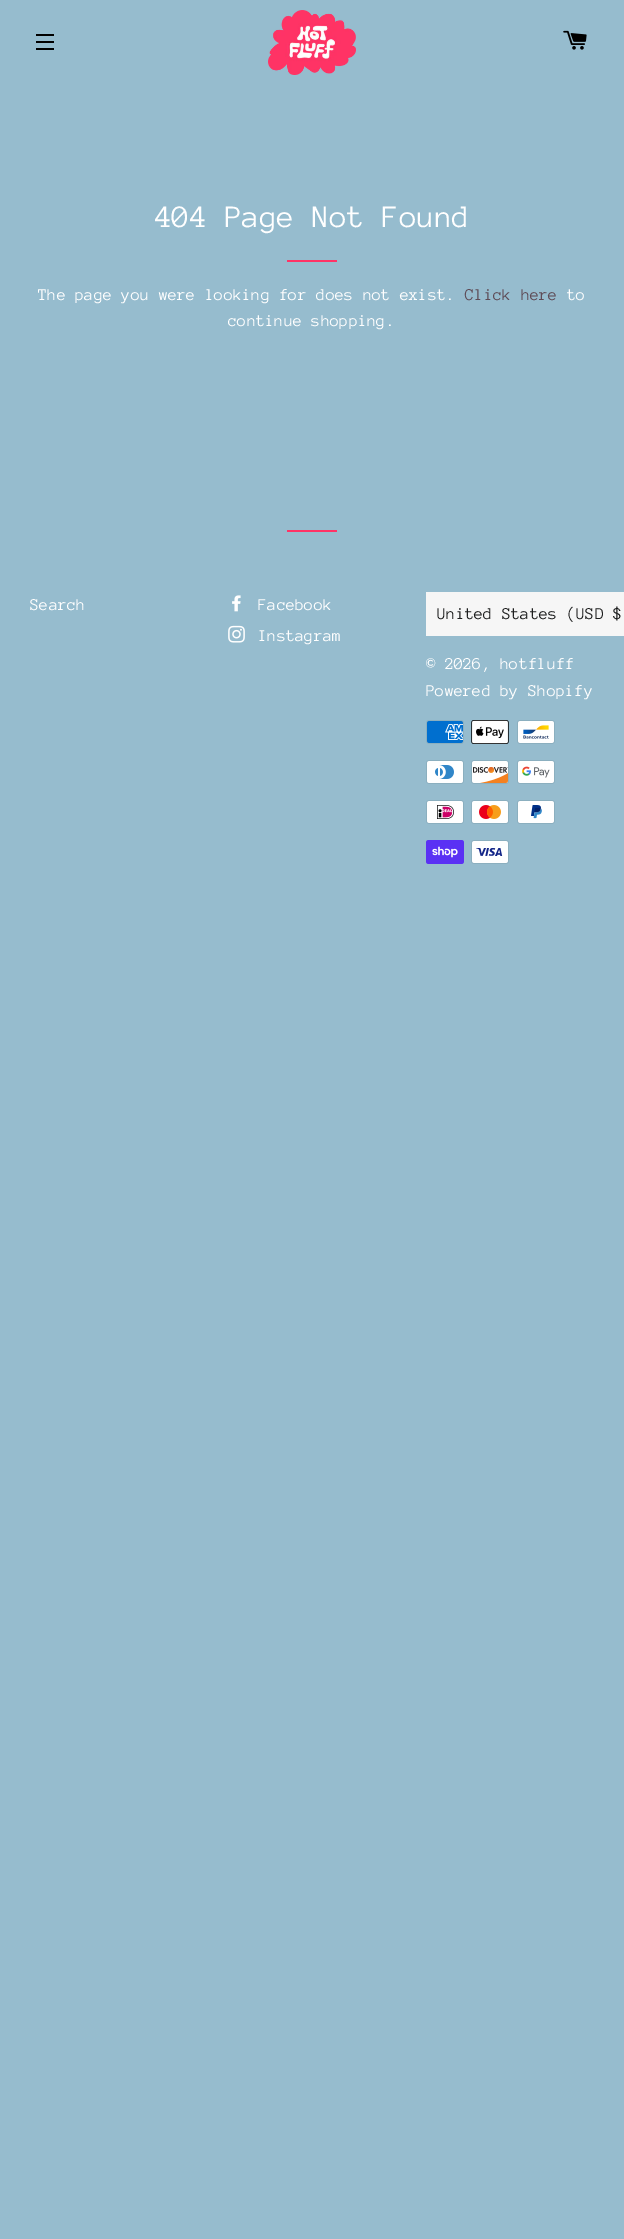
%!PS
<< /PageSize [624 2239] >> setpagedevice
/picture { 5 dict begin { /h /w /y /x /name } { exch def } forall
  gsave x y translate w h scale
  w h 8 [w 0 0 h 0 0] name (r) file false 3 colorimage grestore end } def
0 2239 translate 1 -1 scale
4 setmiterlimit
0.588 0.737 0.808 setrgbcolor
0 0 624 2239 rectfill
0 setgray
36 34 18 2 rectfill
36 41 18 2 rectfill
36 48 18 2 rectfill
(img1.rgb) 268 10 88 65 picture
(img2.rgb) 563 30 24 20 picture
/AnonymousPro-Regular [32 0 0 -32 0 0] selectfont
1 setgray
155 227 moveto (404 Page Not Found) show
1 0.2 0.4 setrgbcolor
287 260 50 2 rectfill
/AnonymousPro-Regular [17 0 0 -17 0 0] selectfont
1 setgray
38 300 moveto (The page you were looking for does not exist.) show
0.369 0.294 0.337 setrgbcolor
465 300 moveto (Click here) show
1 setgray
567 300 moveto (to) show
228 326 moveto (continue shopping.) show
1 0.2 0.4 setrgbcolor
287 530 50 2 rectfill
1 setgray
30 610 moveto (Search) show
(img3.rgb) 232 595 9 17 picture
258 610 moveto (Facebook) show
(img4.rgb) 228 625 17 18 picture
258 641 moveto (Instagram) show
0.965 setgray
426 592 198 44 rectfill
0.11 0.114 0.114 setrgbcolor
437 619 moveto (United States \(USD $) show
1 setgray
426 669 moveto (© 2026, hotfluff) show
426 696 moveto (Powered by Shopify) show
(img5.rgb) 426 720 38 24 picture
(img6.rgb) 471 720 38 24 picture
(img7.rgb) 517 720 38 24 picture
(img8.rgb) 426 760 38 24 picture
(img9.rgb) 471 760 38 24 picture
(img10.rgb) 517 760 38 24 picture
(img11.rgb) 426 800 38 24 picture
(img12.rgb) 471 800 38 24 picture
(img13.rgb) 517 800 38 24 picture
(img14.rgb) 426 840 38 24 picture
(img15.rgb) 471 840 38 24 picture
showpage
